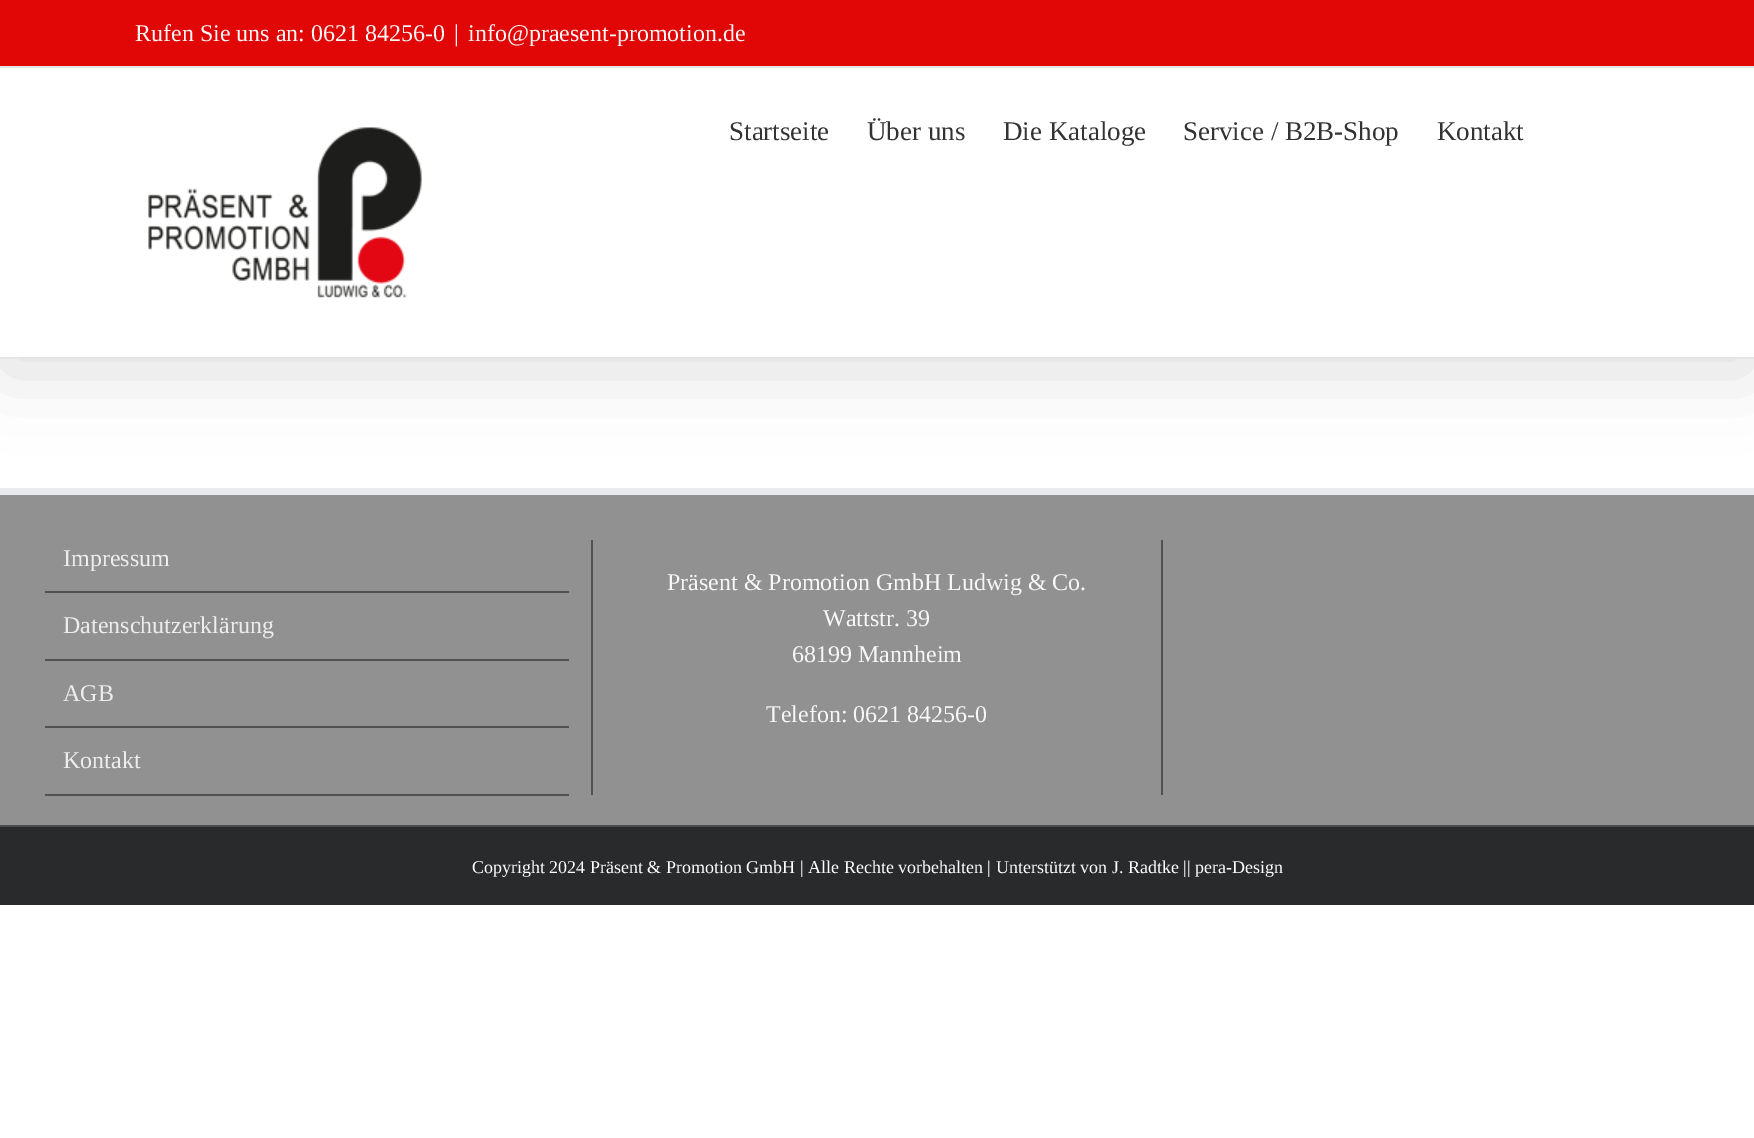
%!PS
<< /PageSize [1754 1138] /PageUsesTransparency true >> setpagedevice
/alpha { dup .setfillconstantalpha .setstrokeconstantalpha } def
/roundrect { 5 dict begin { /r /h /w /y /x } { exch def } forall
  x r add y moveto x w add y 2 copy h add r arct x w add y h add x 1 index r arct
  x y h add x y r arct x y 2 copy exch w add exch r arct closepath end } def
/shadow { 12 dict begin { /a /b /q /h /w /y /x } { exch def } forall gsave /was 0 def
  9 -2 -9 { dup b mul 4 div /e exch def 1 sub .425 mul 2.718 exch exp 1 add a .99 .min exch div /now exch def
    1 1 now sub 1 was sub div sub alpha /was now def
    w h .min e 2 mul add 0 gt { x e sub y e sub w e 2 mul add h e 2 mul add
      q e add b .6 mul add w h .min 2 div e add .min 0 .max roundrect fill } if } for grestore end } def
/picture { 5 dict begin { /h /w /y /x /name } { exch def } forall
  gsave x y translate w h scale
  w h 8 [w 0 0 h 0 0] name (r) file false 3 colorimage grestore end } def
0 .pushpdf14devicefilter
0 1138 translate 1 -1 scale
4 setmiterlimit
1 setgray
0 0 1754 1138 rectfill
0 setgray
3 18 1749 353 0 37.5 0.14 shadow
0.882 0.027 0.027 setrgbcolor
0 0 1754 66 rectfill
0.898 setgray
0 66 1754 2 rectfill
/LiberationSerif-Regular [24 0 0 -24 0 0] selectfont
0.969 setgray
135 41 moveto (Rufen Sie uns an: 0621 84256-0) show
454 41 moveto (|) show
468 41 moveto (info@praesent-promotion.de) show
1 setgray
0 68 1754 289 rectfill
0.898 setgray
0 357 1754 2 rectfill
(img1.rgb) 148 127 274 171 picture
/LiberationSerif-Regular [27 0 0 -27 0 0] selectfont
0.2 setgray
729 140 moveto (Startseite) show
867 140 moveto (Über uns) show
1003 140 moveto (Die Kataloge) show
1183 140 moveto (Service / B2B-Shop) show
1437 140 moveto (Kontakt) show
0.569 setgray
0 495 1754 330 rectfill
0.914 0.918 0.933 setrgbcolor
0 488 1754 7 rectfill
0.314 0.318 0.322 setrgbcolor
591 540 2 255 rectfill
45 591 524 2 rectfill
/LiberationSerif-Regular [24 0 0 -24 0 0] selectfont
0.929 setgray
63 566 moveto (Impressum) show
0.314 0.318 0.322 setrgbcolor
45 659 524 2 rectfill
0.929 setgray
63 633 moveto (Datenschutzerklärung) show
0.314 0.318 0.322 setrgbcolor
45 726 524 2 rectfill
0.929 setgray
63 701 moveto (AGB) show
0.314 0.318 0.322 setrgbcolor
45 794 524 2 rectfill
0.929 setgray
63 768 moveto (Kontakt) show
0.314 0.318 0.322 setrgbcolor
1161 540 2 255 rectfill
0.969 setgray
667 590 moveto (Präsent & Promotion GmbH Ludwig & Co.) show
823 626 moveto (Wattstr. 39) show
792 662 moveto (68199 Mannheim) show
766 722 moveto (Telefon: 0621 84256-0) show
0.157 0.165 0.169 setrgbcolor
0 827 1754 78 rectfill
0.294 0.298 0.302 setrgbcolor
0 825 1754 2 rectfill
/LiberationSerif-Regular [18 0 0 -18 0 0] selectfont
1 setgray
472 873 moveto (Copyright 2024 Präsent & Promotion GmbH | Alle Rechte vorbehalten | Unterstützt von J. Radtke || pera-Design) show
.poppdf14devicefilter showpage
